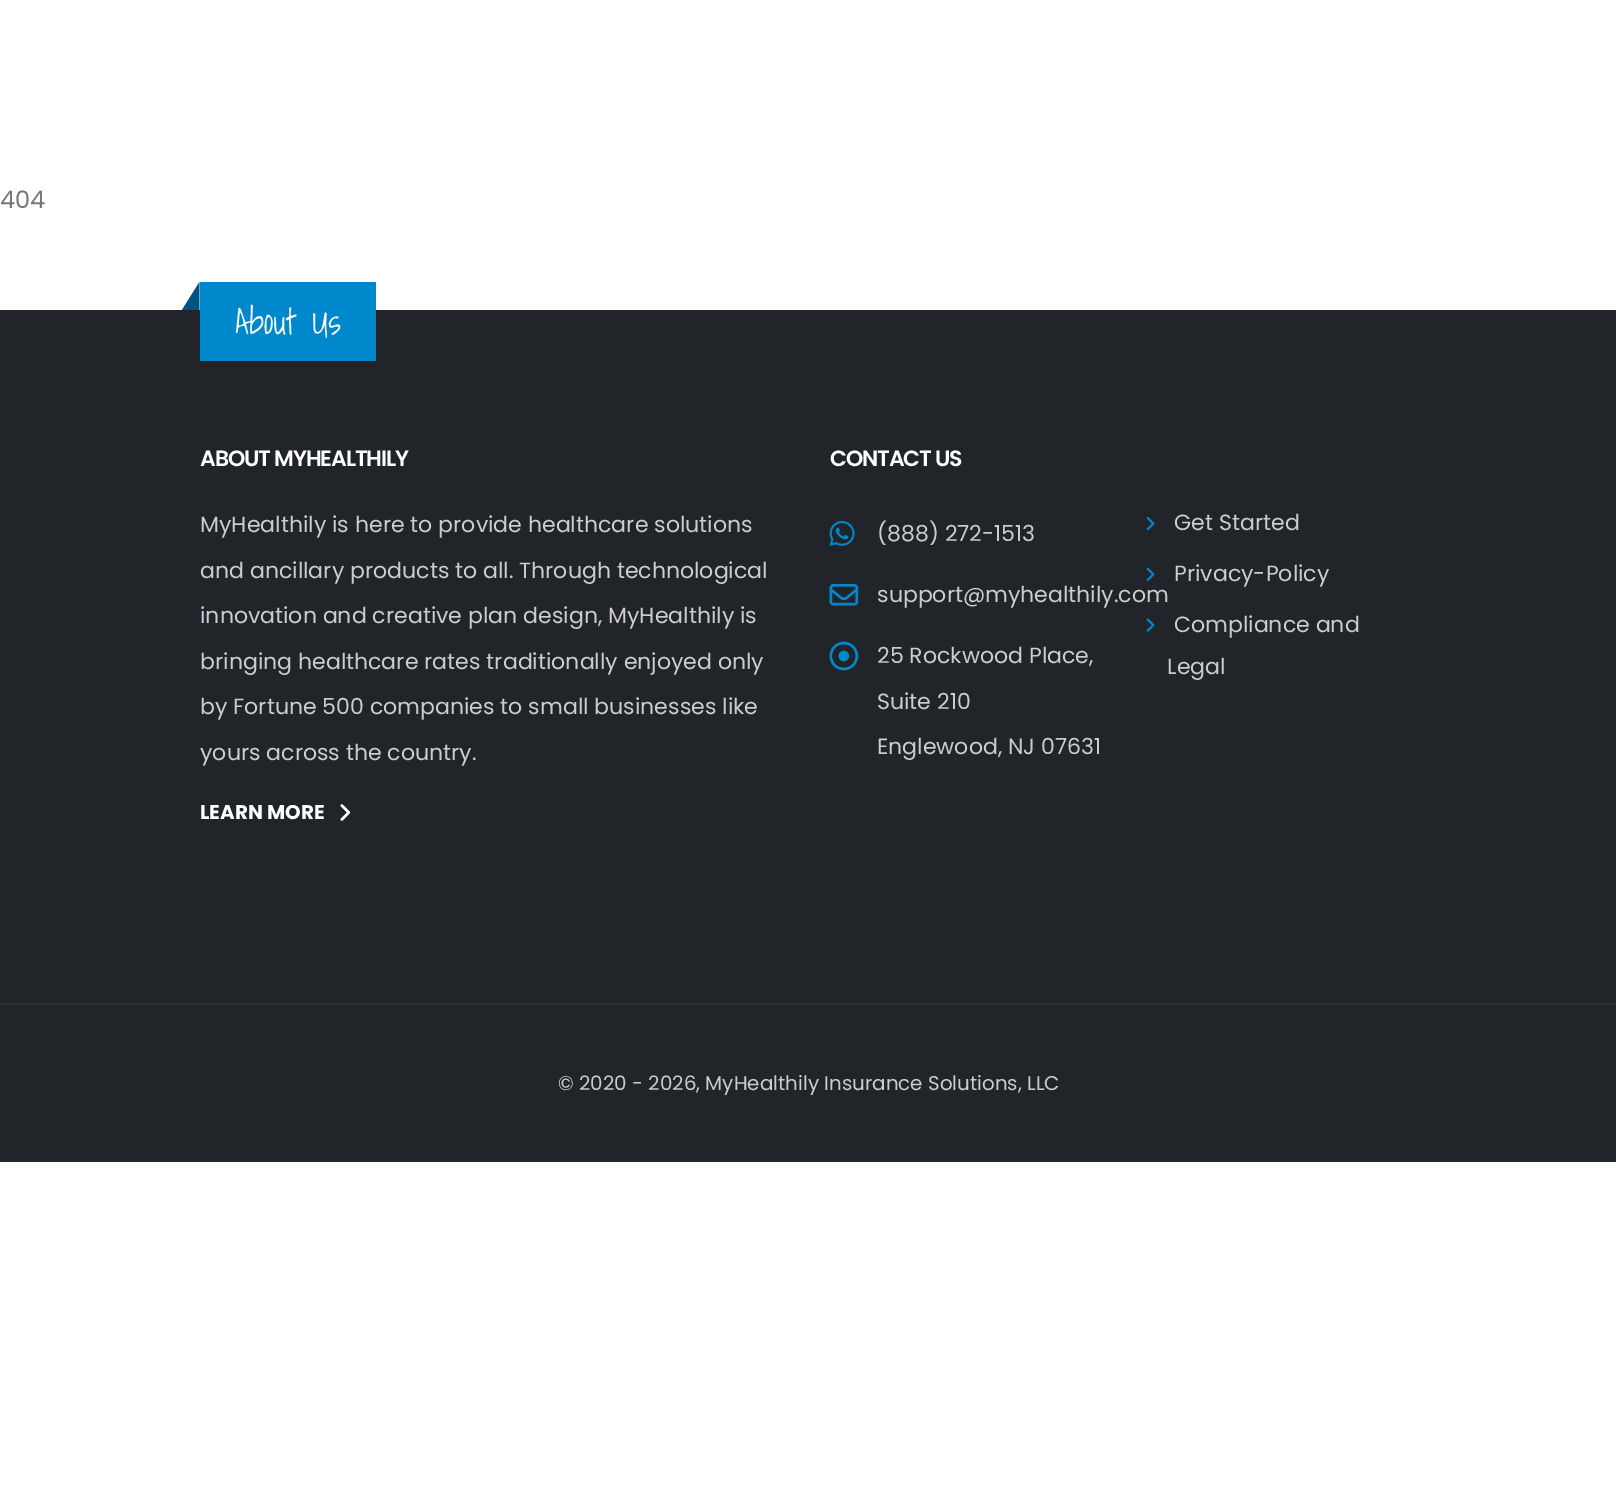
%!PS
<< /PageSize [1616 1499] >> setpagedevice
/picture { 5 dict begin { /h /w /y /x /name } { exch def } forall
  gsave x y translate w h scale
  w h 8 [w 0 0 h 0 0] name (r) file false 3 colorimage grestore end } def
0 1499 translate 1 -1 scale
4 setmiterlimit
1 setgray
0 0 1616 1499 rectfill
/Poppins-Regular [24 0 0 -24 0 0] selectfont
0.467 setgray
0 208 moveto (404) show
0.129 0.145 0.161 setrgbcolor
0 310 1616 852 rectfill
0 0.533 0.8 setrgbcolor
200 282 176 79 rectfill
0 0.333 0.502 setrgbcolor
newpath 199.5 282 moveto 199.5 310 lineto 182 310 lineto closepath fill
/ShadowsIntoLight-Light [35 0 0 -35 0 0] selectfont
1 setgray
235 334 moveto (About Us) show
/Poppins-SemiBold [22.05 0 0 -22.05 0 0] selectfont
200 466 moveto -1.1 0 (ABOUT MYHEALTHILY) ashow
/Poppins-Regular [22.05 0 0 -22.05 0 0] selectfont
0.8 setgray
200 532 moveto (MyHealthily is here to provide healthcare solutions) show
200 578 moveto (and ancillary products to all. Through technological) show
200 623 moveto (innovation and creative plan design, MyHealthily is) show
200 669 moveto (bringing healthcare rates traditionally enjoyed only) show
200 714 moveto (by Fortune 500 companies to small businesses like) show
200 760 moveto (yours across the country.) show
/Poppins-Bold [19.85 0 0 -19.85 0 0] selectfont
1 setgray
200 819 moveto (LEARN MORE) show
(img1.rgb) 340 804 11 17 picture
/Poppins-SemiBold [22.05 0 0 -22.05 0 0] selectfont
830 466 moveto -1.1 0 (CONTACT US) ashow
(img2.rgb) 829 521 26 25 picture
/Poppins-Regular [22.05 0 0 -22.05 0 0] selectfont
0.8 setgray
877 541 moveto (\(888\) 272-1513) show
(img3.rgb) 829 584 30 22 picture
877 602 moveto (support@myhealthily.com) show
(img4.rgb) 829 641 30 30 picture
877 663 moveto (25 Rockwood Place,) show
877 709 moveto (Suite 210) show
877 754 moveto (Englewood, NJ 07631) show
(img5.rgb) 1146 517 9 14 picture
1174 530 moveto (Get Started) show
(img6.rgb) 1146 567 9 14 picture
1174 581 moveto (Privacy-Policy) show
(img7.rgb) 1146 618 9 14 picture
1174 632 moveto (Compliance and) show
1167 674 moveto (Legal) show
0.173 0.188 0.204 setrgbcolor
0 1003 1616 2 rectfill
/Poppins-Regular [19.85 0 0 -19.85 0 0] selectfont
0.8 setgray
558 1090 moveto (© 2020 - 2026, MyHealthily Insurance Solutions, LLC) show
showpage
